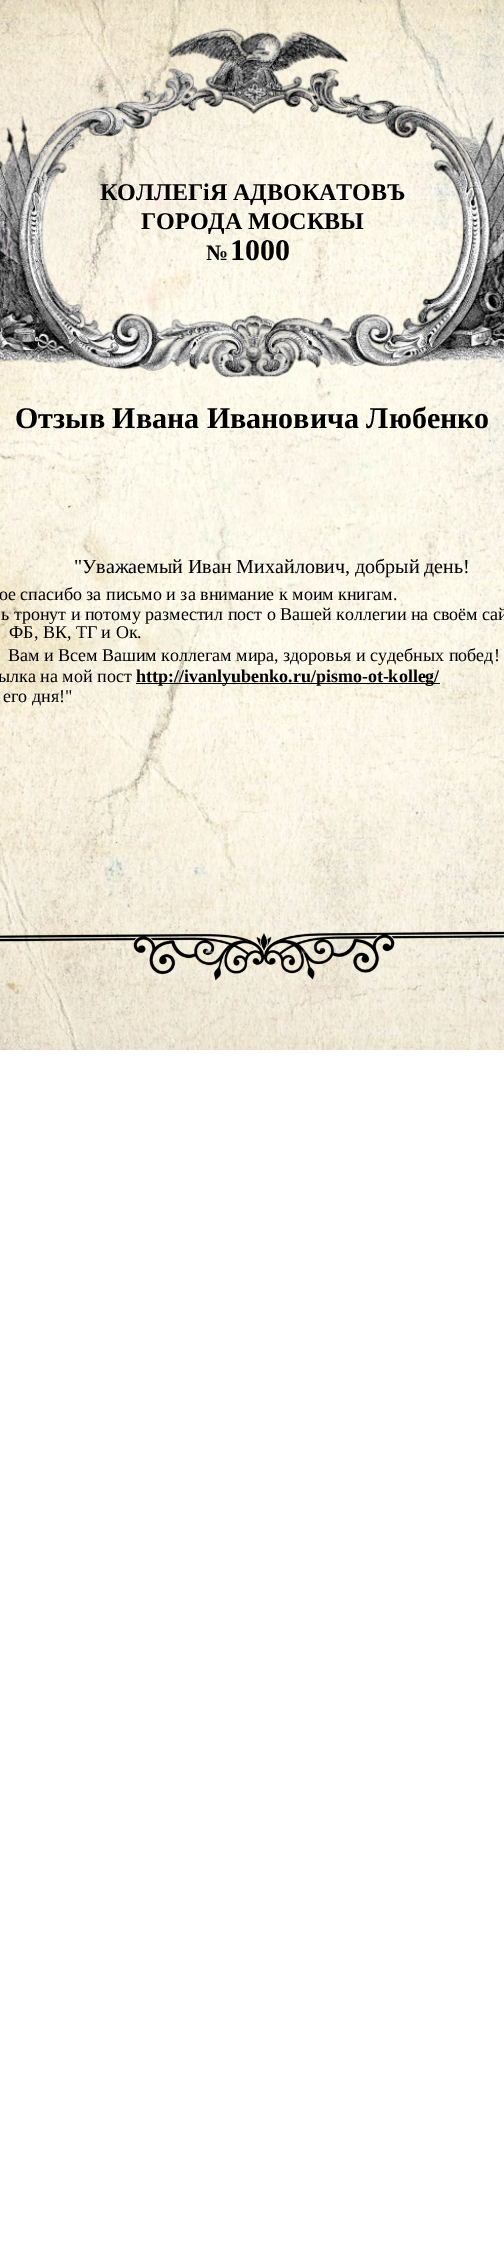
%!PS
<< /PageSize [504 2242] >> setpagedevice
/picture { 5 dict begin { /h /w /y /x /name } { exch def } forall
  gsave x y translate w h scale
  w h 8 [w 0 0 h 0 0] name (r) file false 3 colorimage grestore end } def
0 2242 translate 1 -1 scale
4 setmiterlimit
1 setgray
0 0 504 2242 rectfill
(img1.rgb) 0 0 504 1050 picture
(img2.rgb) 0 28 504 350 picture
/LiberationSerif-Bold [24 0 0 -24 0 0] selectfont
0 setgray
100 200 moveto (КОЛЛЕГiЯ АДВОКАТОВЪ) show
141 229 moveto (ГОРОДА МОСКВЫ) show
/LiberationSerif-Bold [22 0 0 -22 0 0] selectfont
206 260 moveto (№) show
/LiberationSerif-Bold [30 0 0 -30 0 0] selectfont
230 260 moveto (1000) show
15 428 moveto (Отзыв Ивана Ивановича Любенко) show
/LiberationSerif-Regular [20 0 0 -20 0 0] selectfont
74 573 moveto ("Уважаемый Иван Михайлович, добрый день!) show
/LiberationSerif-Regular [18 0 0 -18 0 0] selectfont
-1 600 moveto (ое спасибо за письмо и за внимание к моим книгам.) show
1 620 moveto (ь тронут и потому разместил пост о Вашей коллегии на своём сай) show
9 638 moveto (ФБ, ВК, ТГ и Ок.) show
8 661 moveto (Вам и Всем Вашим коллегам мира, здоровья и судебных побед!) show
-2 682 moveto (ылка на мой пост) show
136 683 304 1 rectfill
/LiberationSerif-Bold [18 0 0 -18 0 0] selectfont
136 682 moveto (http://ivanlyubenko.ru/pismo-ot-kolleg/) show
/LiberationSerif-Regular [18 0 0 -18 0 0] selectfont
3 702 moveto (его дня!") show
(img3.rgb) 0 931 504 50 picture
showpage
